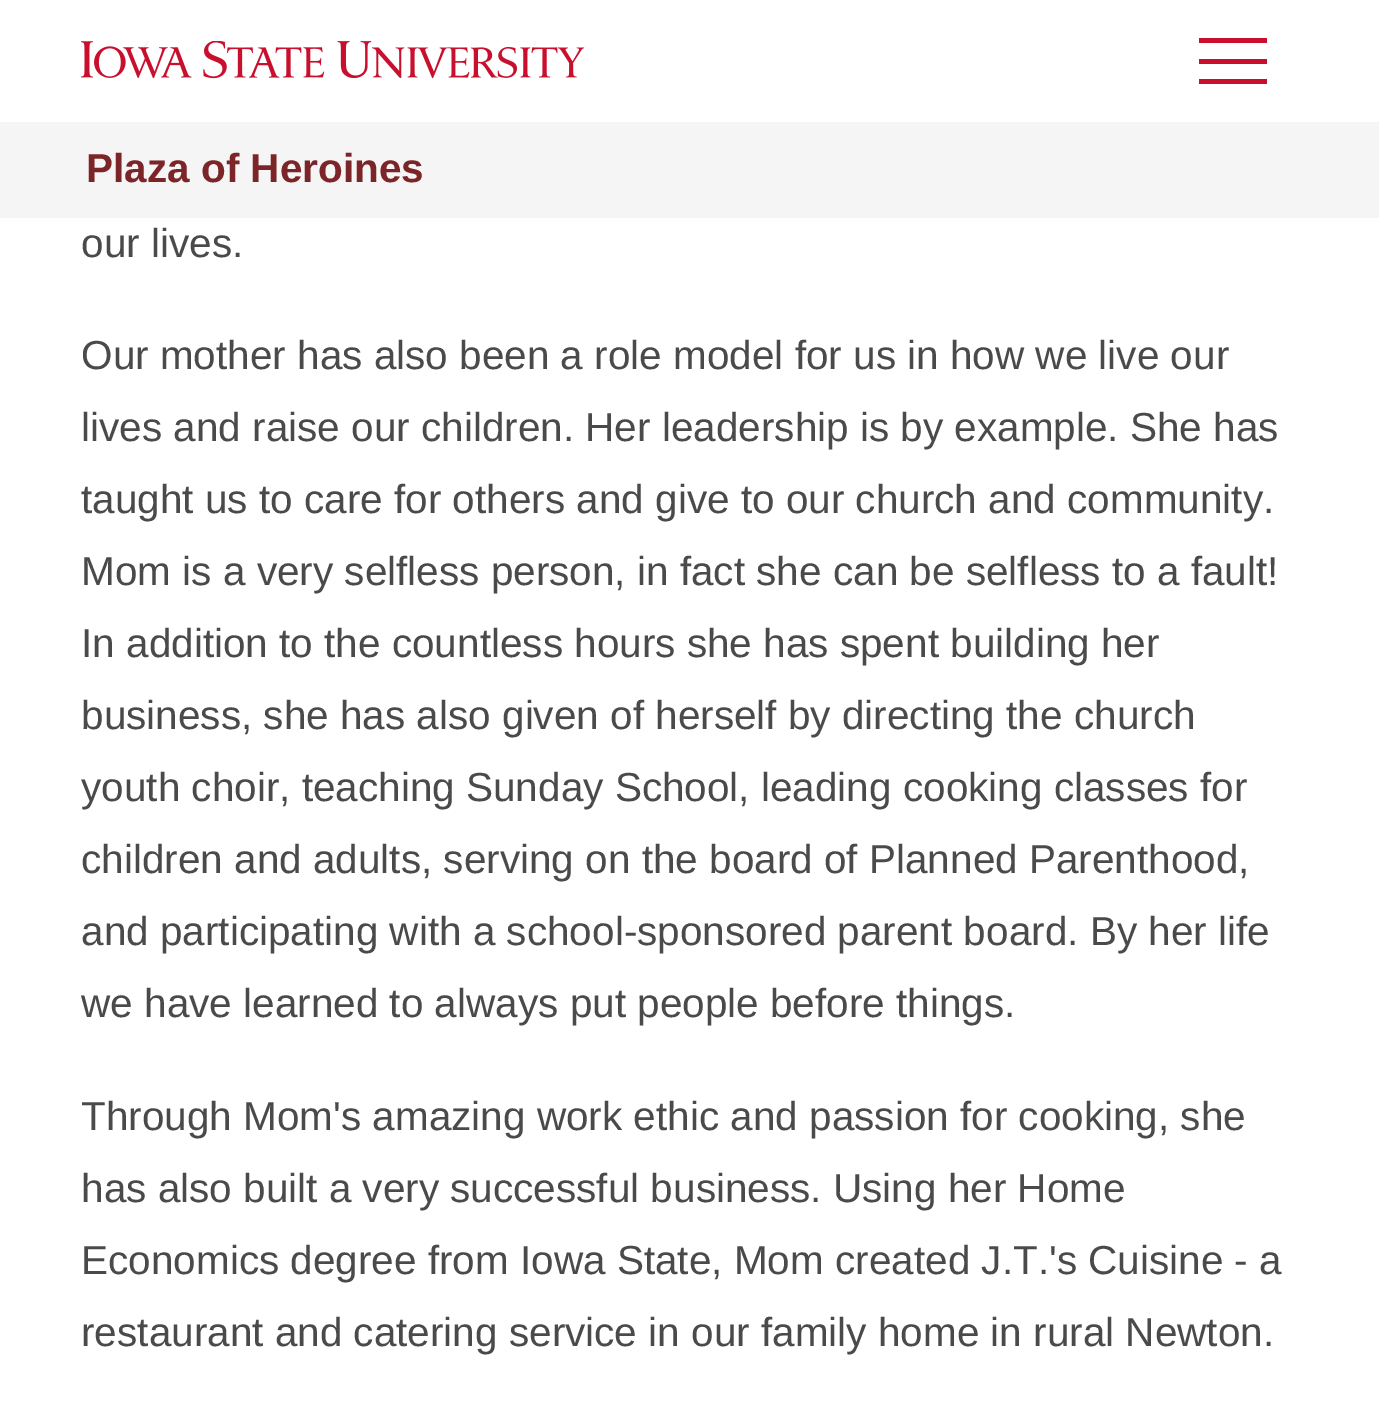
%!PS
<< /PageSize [1379 1402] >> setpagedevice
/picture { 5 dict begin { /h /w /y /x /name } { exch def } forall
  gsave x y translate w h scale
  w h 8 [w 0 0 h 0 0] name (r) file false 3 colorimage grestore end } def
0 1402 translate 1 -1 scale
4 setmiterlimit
1 setgray
0 0 1379 1402 rectfill
0.784 0.063 0.18 setrgbcolor
1199 38 68 5 rectfill
1199 59 68 5 rectfill
1199 79 68 5 rectfill
(img1.rgb) 81 41 504 38 picture
0.961 setgray
0 122 1379 96 rectfill
/LiberationSans-Bold [40.5 0 0 -40.5 0 0] selectfont
0.486 0.145 0.161 setrgbcolor
86 182 moveto (Plaza of Heroines) show
/LiberationSans-Regular [40.5 0 0 -40.5 0 0] selectfont
0.29 setgray
81 257 moveto (our lives.) show
81 369 moveto (Our mother has also been a role model for us in how we live our) show
81 441 moveto (lives and raise our children. Her leadership is by example. She has) show
81 513 moveto (taught us to care for others and give to our church and community.) show
81 585 moveto (Mom is a very selfless person, in fact she can be selfless to a fault!) show
81 657 moveto (In addition to the countless hours she has spent building her) show
81 729 moveto (business, she has also given of herself by directing the church) show
81 801 moveto (youth choir, teaching Sunday School, leading cooking classes for) show
81 873 moveto (children and adults, serving on the board of Planned Parenthood,) show
81 945 moveto (and participating with a school-sponsored parent board. By her life) show
81 1017 moveto (we have learned to always put people before things.) show
81 1130 moveto (Through Mom's amazing work ethic and passion for cooking, she) show
81 1202 moveto (has also built a very successful business. Using her Home) show
81 1274 moveto (Economics degree from Iowa State, Mom created J.T.'s Cuisine - a) show
81 1346 moveto (restaurant and catering service in our family home in rural Newton.) show
showpage
